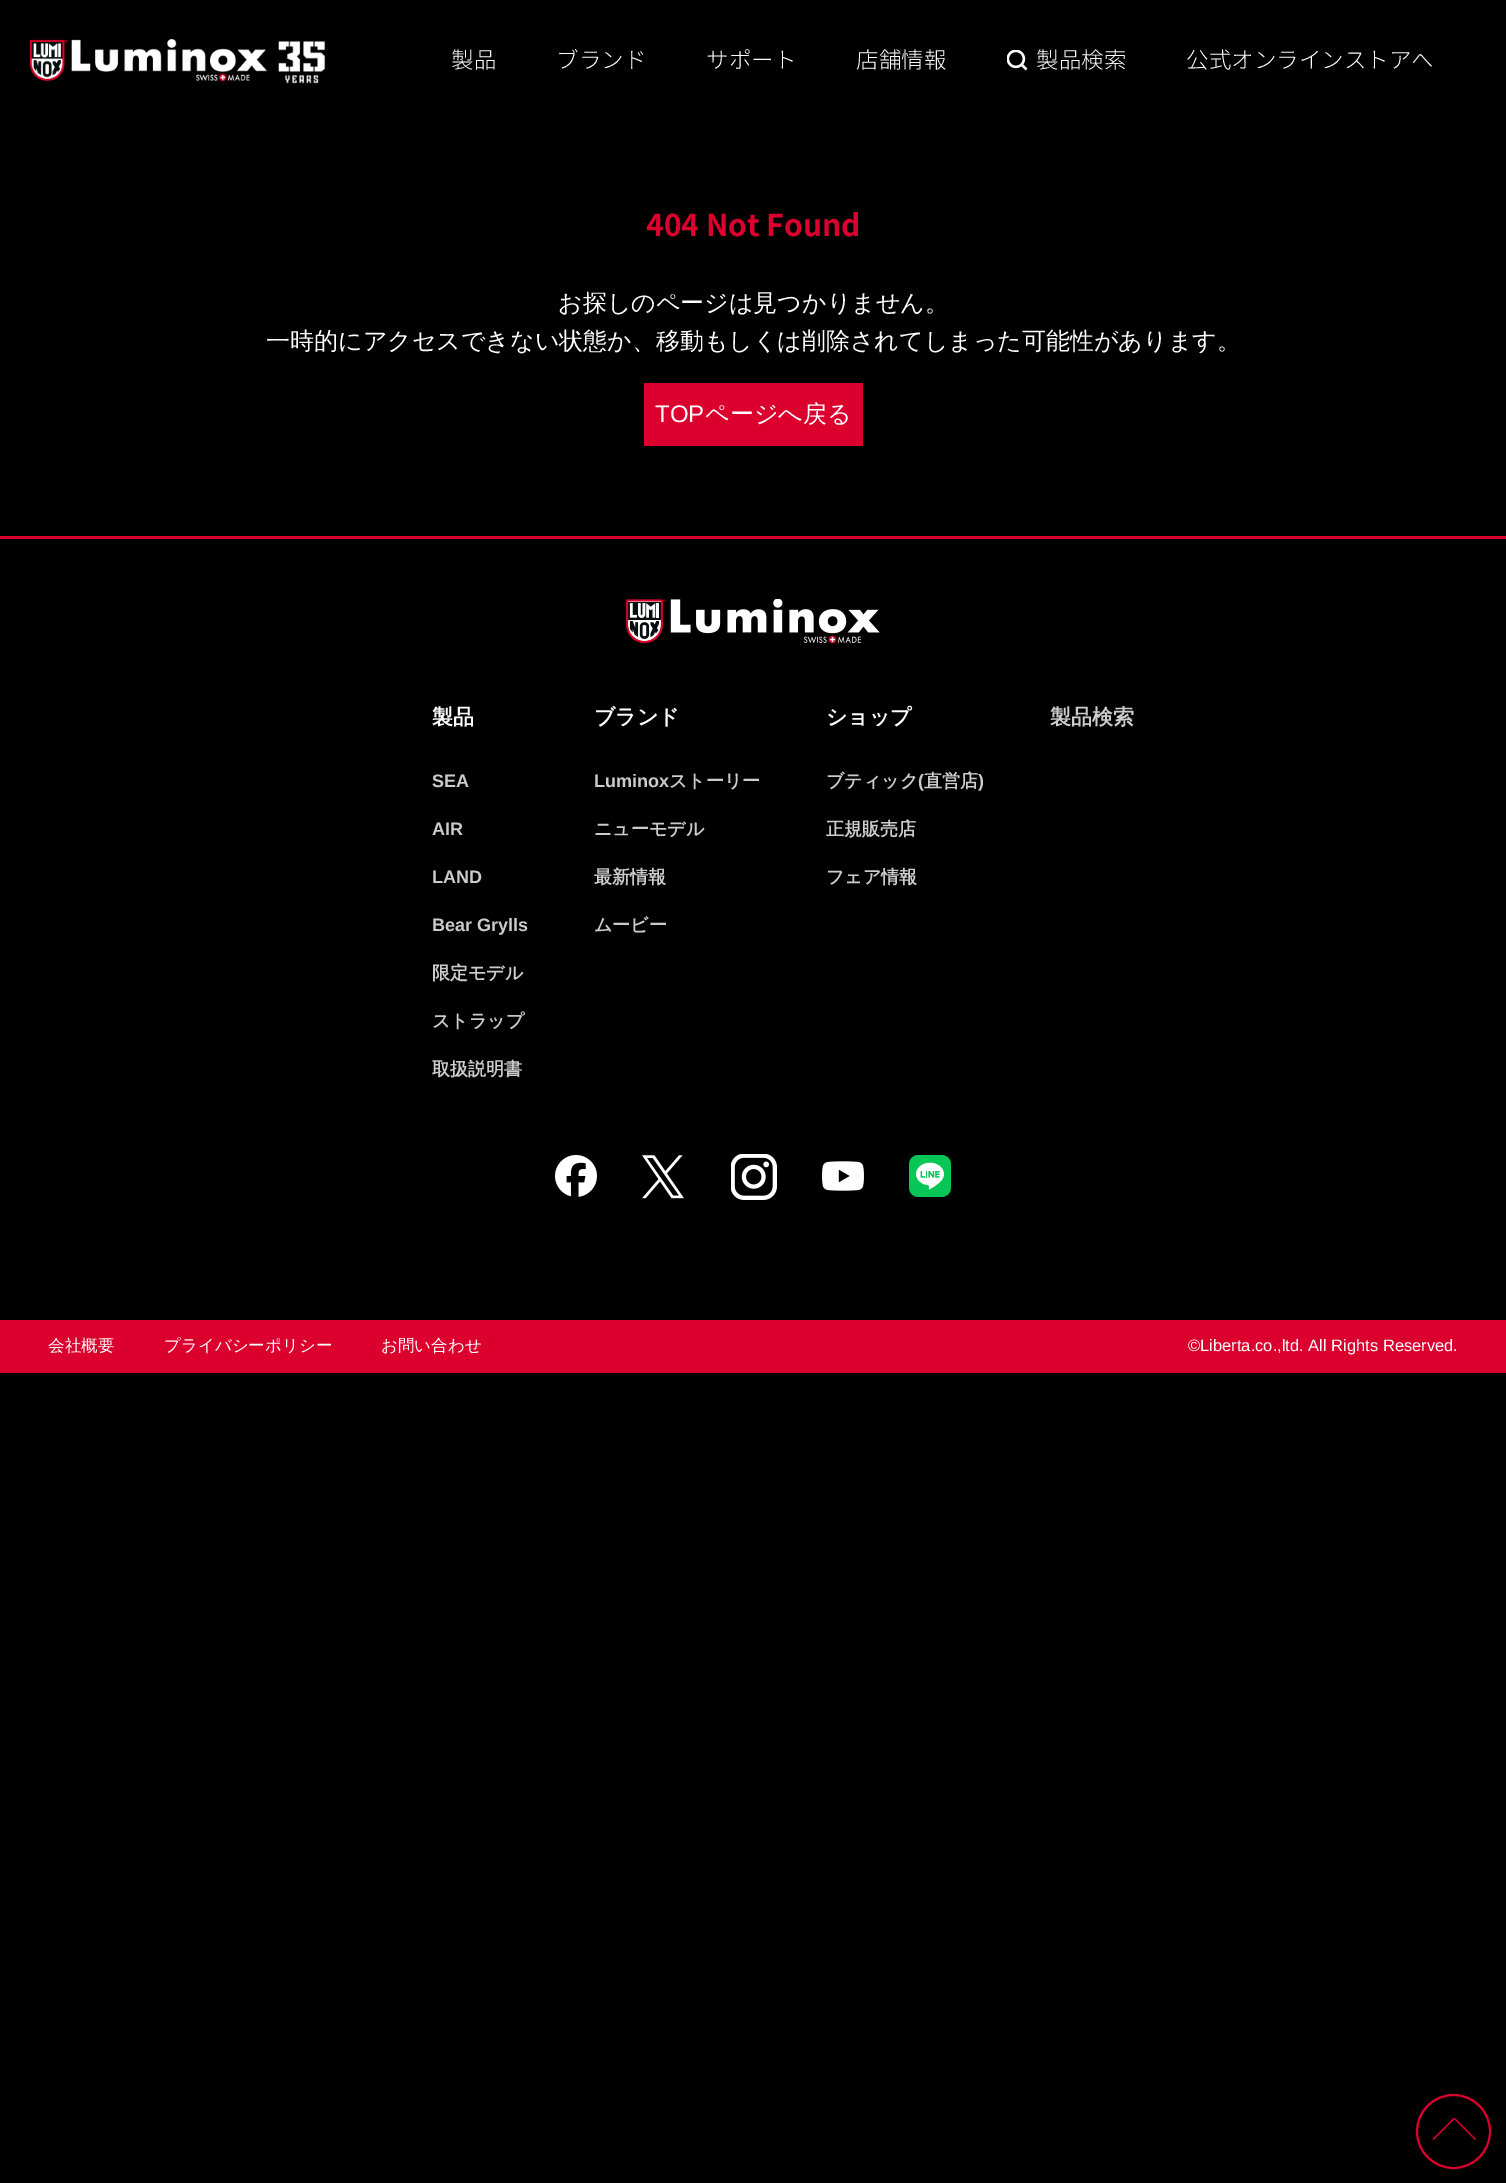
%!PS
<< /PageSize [1506 2183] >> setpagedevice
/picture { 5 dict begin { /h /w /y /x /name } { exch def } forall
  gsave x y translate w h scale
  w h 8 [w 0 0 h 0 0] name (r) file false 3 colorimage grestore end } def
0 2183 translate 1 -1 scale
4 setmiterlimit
0 setgray
0 0 1506 2183 rectfill
(img1.rgb) 30 39 296 45 picture
/NotoSansJP-Light [22.5 0 0 -22.5 0 0] selectfont
1 setgray
451 68 moveto (製品) show
556 68 moveto (ブランド) show
706 68 moveto (サポート) show
856 68 moveto (店舗情報) show
(img2.rgb) 1007 50 21 21 picture
1036 68 moveto (製品検索) show
1186 68 moveto (公式オンラインストアへ) show
/NotoSansJP-Bold [30 0 0 -30 0 0] selectfont
0.863 0 0.18 setrgbcolor
646 236 moveto (404 Not Found) show
/WenQuanYiZenHei-Medium [24 0 0 -24 0 0] selectfont
1 setgray
558 311 moveto (お探しのページは見つかりません。) show
266 349 moveto (一時的にアクセスできない状態か、移動もしくは削除されてしまった可能性があります。) show
0.863 0 0.18 setrgbcolor
644 383 219 63 rectfill
/LiberationSans-Regular [24 0 0 -24 0 0] selectfont
1 setgray
655 422 moveto (TOP) show
/WenQuanYiZenHei-Medium [24 0 0 -24 0 0] selectfont
705 422 moveto (ページへ戻る) show
0.863 0 0.18 setrgbcolor
0 536 1506 3 rectfill
(img3.rgb) 626 599 254 45 picture
/WenQuanYiZenHei-Bold [21 0 0 -21 0 0] selectfont
1 setgray
432 724 moveto (製品) show
/LiberationSans-Bold [18 0 0 -18 0 0] selectfont
0.8 setgray
432 787 moveto (SEA) show
432 835 moveto (AIR) show
432 883 moveto (LAND) show
432 931 moveto (Bear Grylls) show
/WenQuanYiZenHei-Bold [18 0 0 -18 0 0] selectfont
432 979 moveto (限定モデル) show
432 1027 moveto (ストラップ) show
432 1075 moveto (取扱説明書) show
/WenQuanYiZenHei-Bold [21 0 0 -21 0 0] selectfont
1 setgray
594 724 moveto (ブランド) show
/LiberationSans-Bold [18 0 0 -18 0 0] selectfont
0.8 setgray
594 787 moveto (Luminox) show
/WenQuanYiZenHei-Bold [18 0 0 -18 0 0] selectfont
669 787 moveto (ストーリー) show
594 835 moveto (ニューモデル) show
594 883 moveto (最新情報) show
594 931 moveto (ムービー) show
/WenQuanYiZenHei-Bold [21 0 0 -21 0 0] selectfont
1 setgray
826 724 moveto (ショップ) show
/WenQuanYiZenHei-Bold [18 0 0 -18 0 0] selectfont
0.8 setgray
826 787 moveto (ブティック) show
/LiberationSans-Bold [18 0 0 -18 0 0] selectfont
918 787 moveto (\() show
/WenQuanYiZenHei-Bold [18 0 0 -18 0 0] selectfont
924 787 moveto (直営店) show
/LiberationSans-Bold [18 0 0 -18 0 0] selectfont
978 787 moveto (\)) show
/WenQuanYiZenHei-Bold [18 0 0 -18 0 0] selectfont
826 835 moveto (正規販売店) show
826 883 moveto (フェア情報) show
/WenQuanYiZenHei-Bold [21 0 0 -21 0 0] selectfont
1050 724 moveto (製品検索) show
(img4.rgb) 555 1155 42 42 picture
(img5.rgb) 642 1155 42 44 picture
(img6.rgb) 731 1154 46 46 picture
(img7.rgb) 822 1161 42 30 picture
(img8.rgb) 909 1155 42 42 picture
0.863 0 0.18 setrgbcolor
0 1320 1506 53 rectfill
/WenQuanYiZenHei-Medium [16.5 0 0 -16.5 0 0] selectfont
1 setgray
48 1351 moveto (会社概要) show
164 1351 moveto (プライバシーポリシー) show
381 1351 moveto (お問い合わせ) show
/LiberationSans-Regular [16.5 0 0 -16.5 0 0] selectfont
1188 1351 moveto (©Liberta.co.,ltd. All Rights Reserved.) show
0.863 0 0.18 setrgbcolor
2 setlinewidth
newpath 1453.5 2131.5 36.5 0 360 arc closepath stroke
newpath 1432.5 2139 moveto 1453.5 2118 lineto 1454.5 2119 lineto 1433.5 2140 lineto closepath fill
newpath 1455 2118 moveto 1476 2139 lineto 1475 2140 lineto 1454 2119 lineto closepath fill
showpage
